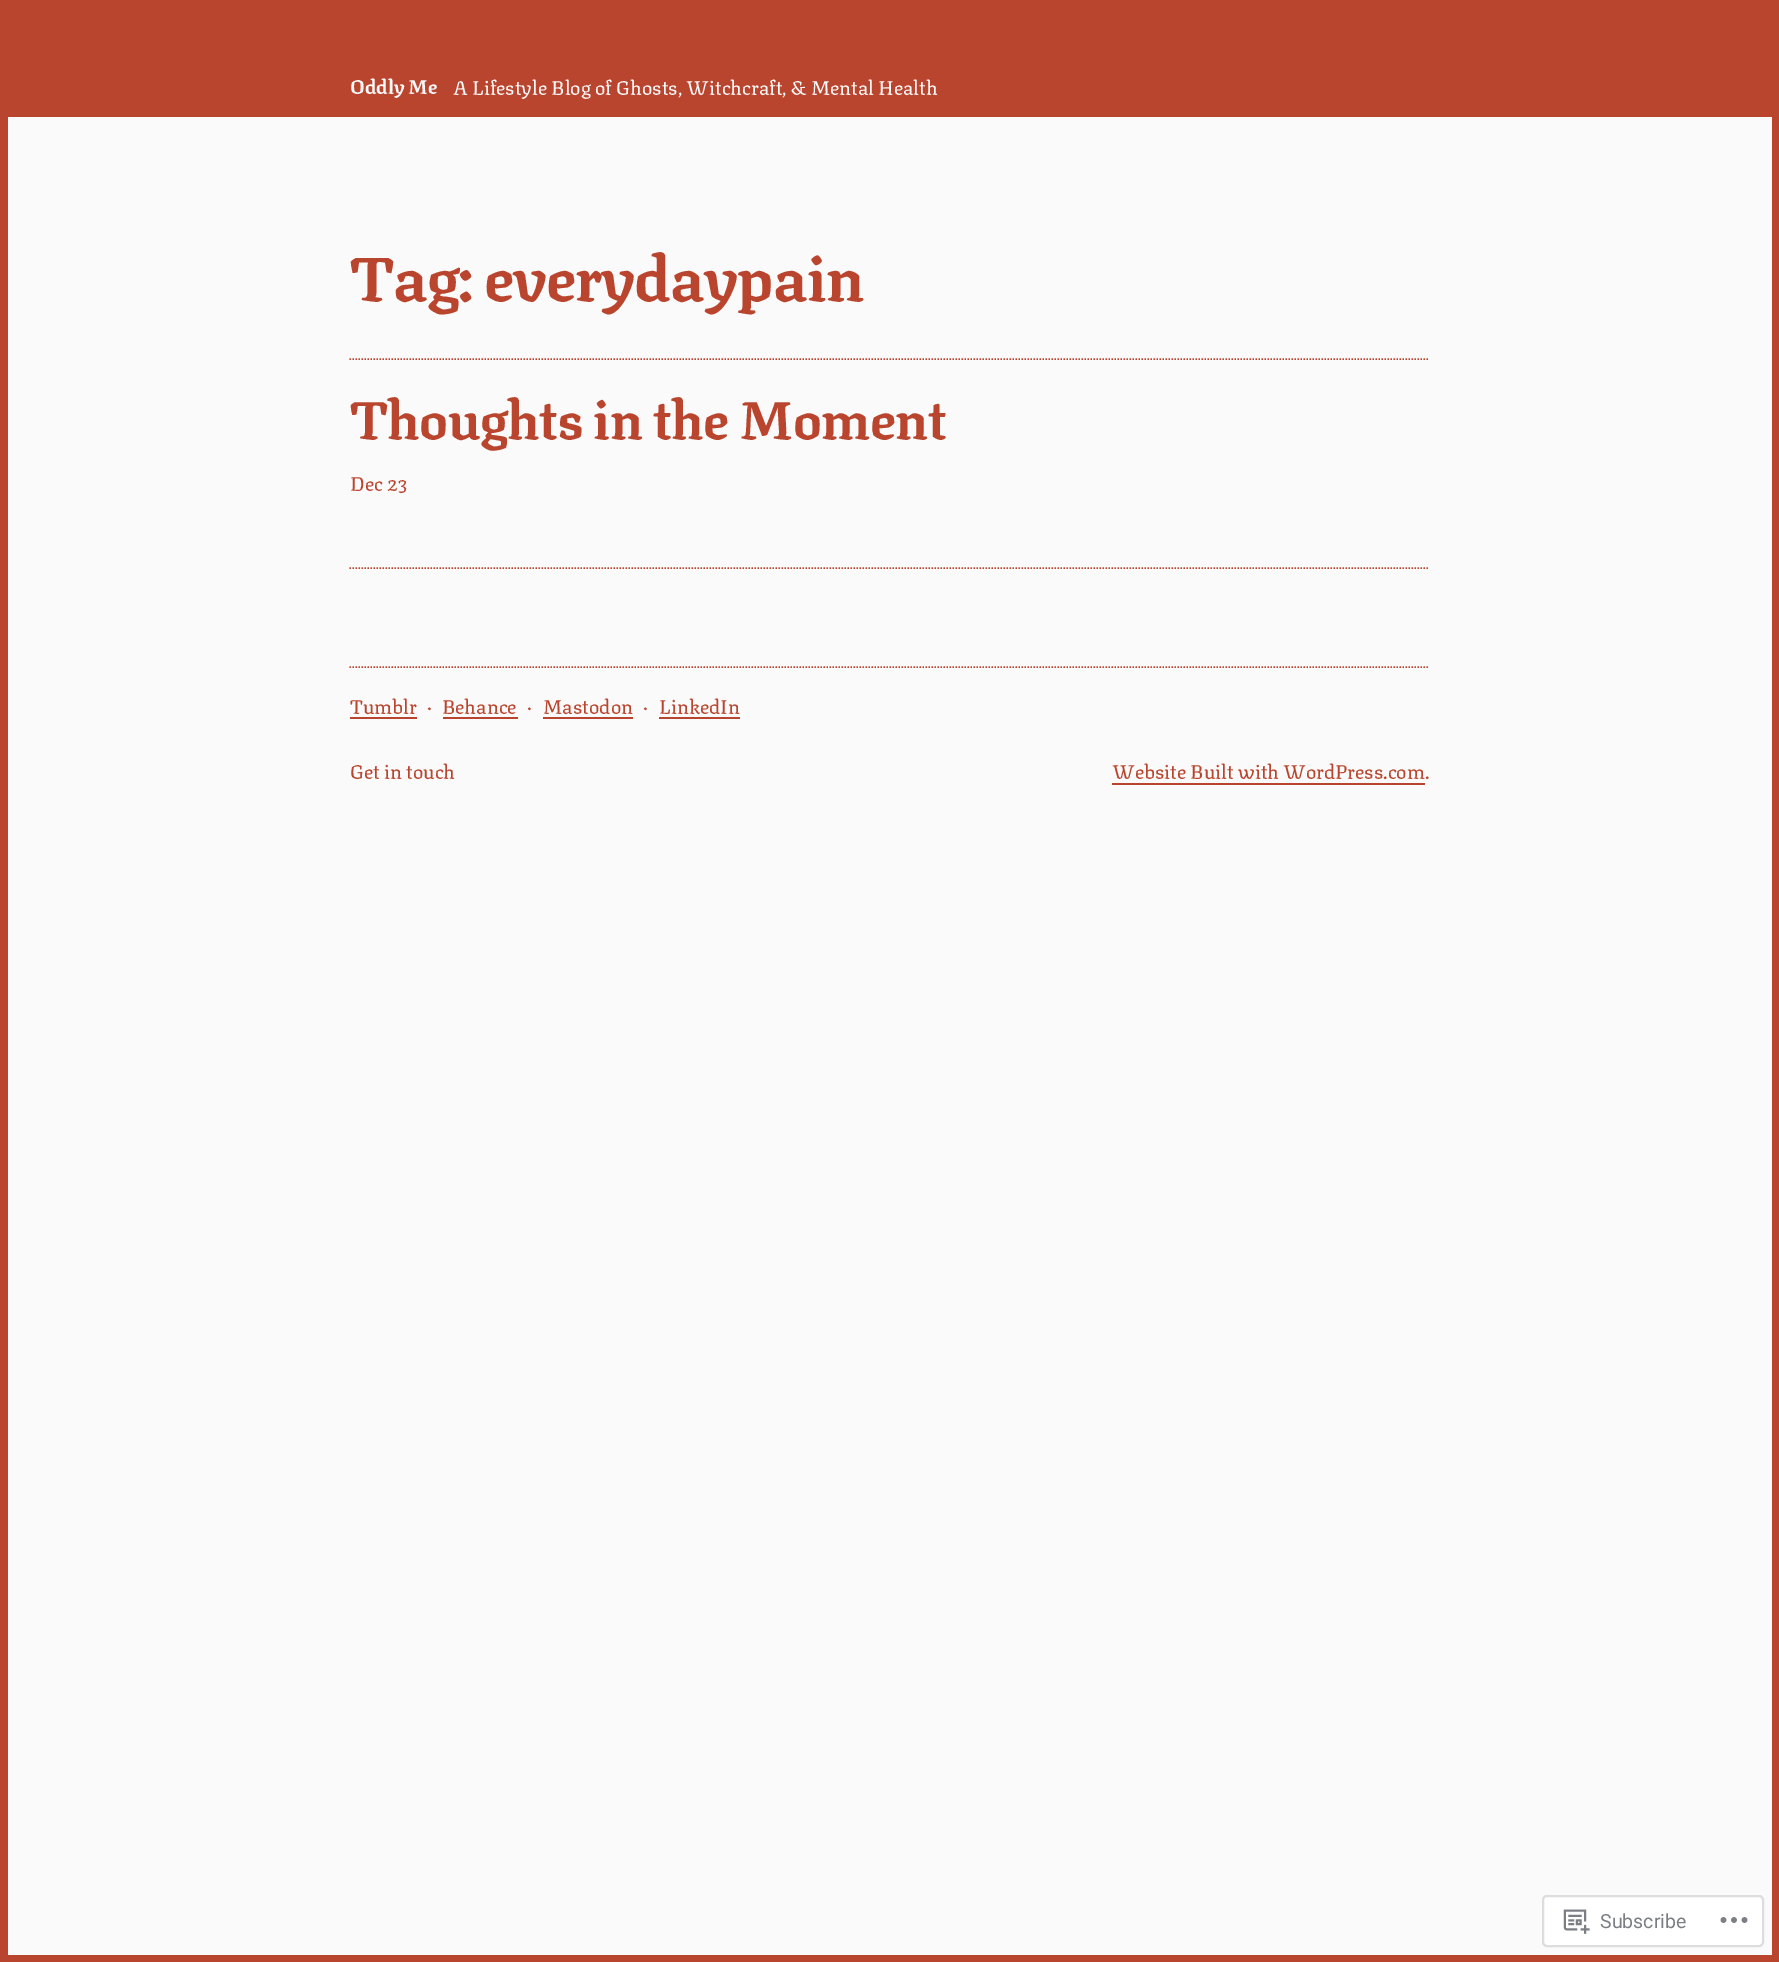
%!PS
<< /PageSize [1779 1962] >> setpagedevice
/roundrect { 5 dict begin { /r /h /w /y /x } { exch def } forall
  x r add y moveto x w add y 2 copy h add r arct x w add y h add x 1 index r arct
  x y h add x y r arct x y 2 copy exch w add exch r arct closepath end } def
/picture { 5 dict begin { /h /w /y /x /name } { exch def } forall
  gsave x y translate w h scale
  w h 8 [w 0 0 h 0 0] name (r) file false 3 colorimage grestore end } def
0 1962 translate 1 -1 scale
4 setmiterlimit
0.98 setgray
0 0 1779 1962 rectfill
0.729 0.271 0.18 setrgbcolor
1772 0 7 1962 rectfill
0 1955 1779 7 rectfill
0 0 8 1962 rectfill
8 0 1764 117 rectfill
/Texturina-Bold [19.5 0 0 -19.5 0 0] selectfont
0.98 setgray
350 94 moveto (Oddly Me) show
/Texturina-Regular [19.5 0 0 -19.5 0 0] selectfont
453 95 moveto (A Lifestyle Blog of Ghosts, Witchcraft, & Mental Health) show
/Texturina-Bold [62.5 0 0 -62.5 0 0] selectfont
0.729 0.271 0.18 setrgbcolor
350 302 moveto -1 0 (Tag: everydaypain) ashow
1.5 setlinewidth
[1.5 1.5] 0 setdash
newpath 349.5 359 moveto 1429.5 359 lineto stroke
/Texturina-Bold [53.75 0 0 -53.75 0 0] selectfont
350 440 moveto -0.5 0 (Thoughts in the Moment) ashow
/Texturina-Regular [19.5 0 0 -19.5 0 0] selectfont
350 491 moveto (Dec 23) show
newpath 349.5 568 moveto 1429.5 568 lineto stroke
newpath 349.5 667 moveto 1429.5 667 lineto stroke
350 714 moveto (Tumblr) show
350 717 67 2 rectfill
427 714 moveto (·) show
442 714 moveto (Behance) show
443 717 75 2 rectfill
527 714 moveto (·) show
543 714 moveto (Mastodon) show
543 717 90 2 rectfill
643 714 moveto (·) show
659 714 moveto (LinkedIn) show
659 717 81 2 rectfill
350 779 moveto (Get in touch) show
1112 779 moveto (Website Built with WordPress.com.) show
1112 783 313 2 rectfill
1 setgray
1543 1896 220 50 4 roundrect gsave fill grestore
0.867 0.867 0.875 setrgbcolor
2 setlinewidth
[] 0 setdash
stroke
(img1.rgb) 1563 1909 27 25 picture
/Roboto-Regular [19.5 0 0 -19.5 0 0] selectfont
0.482 0.498 0.518 setrgbcolor
1600 1928 moveto (Subscribe) show
(img2.rgb) 1720 1917 28 6 picture
showpage
